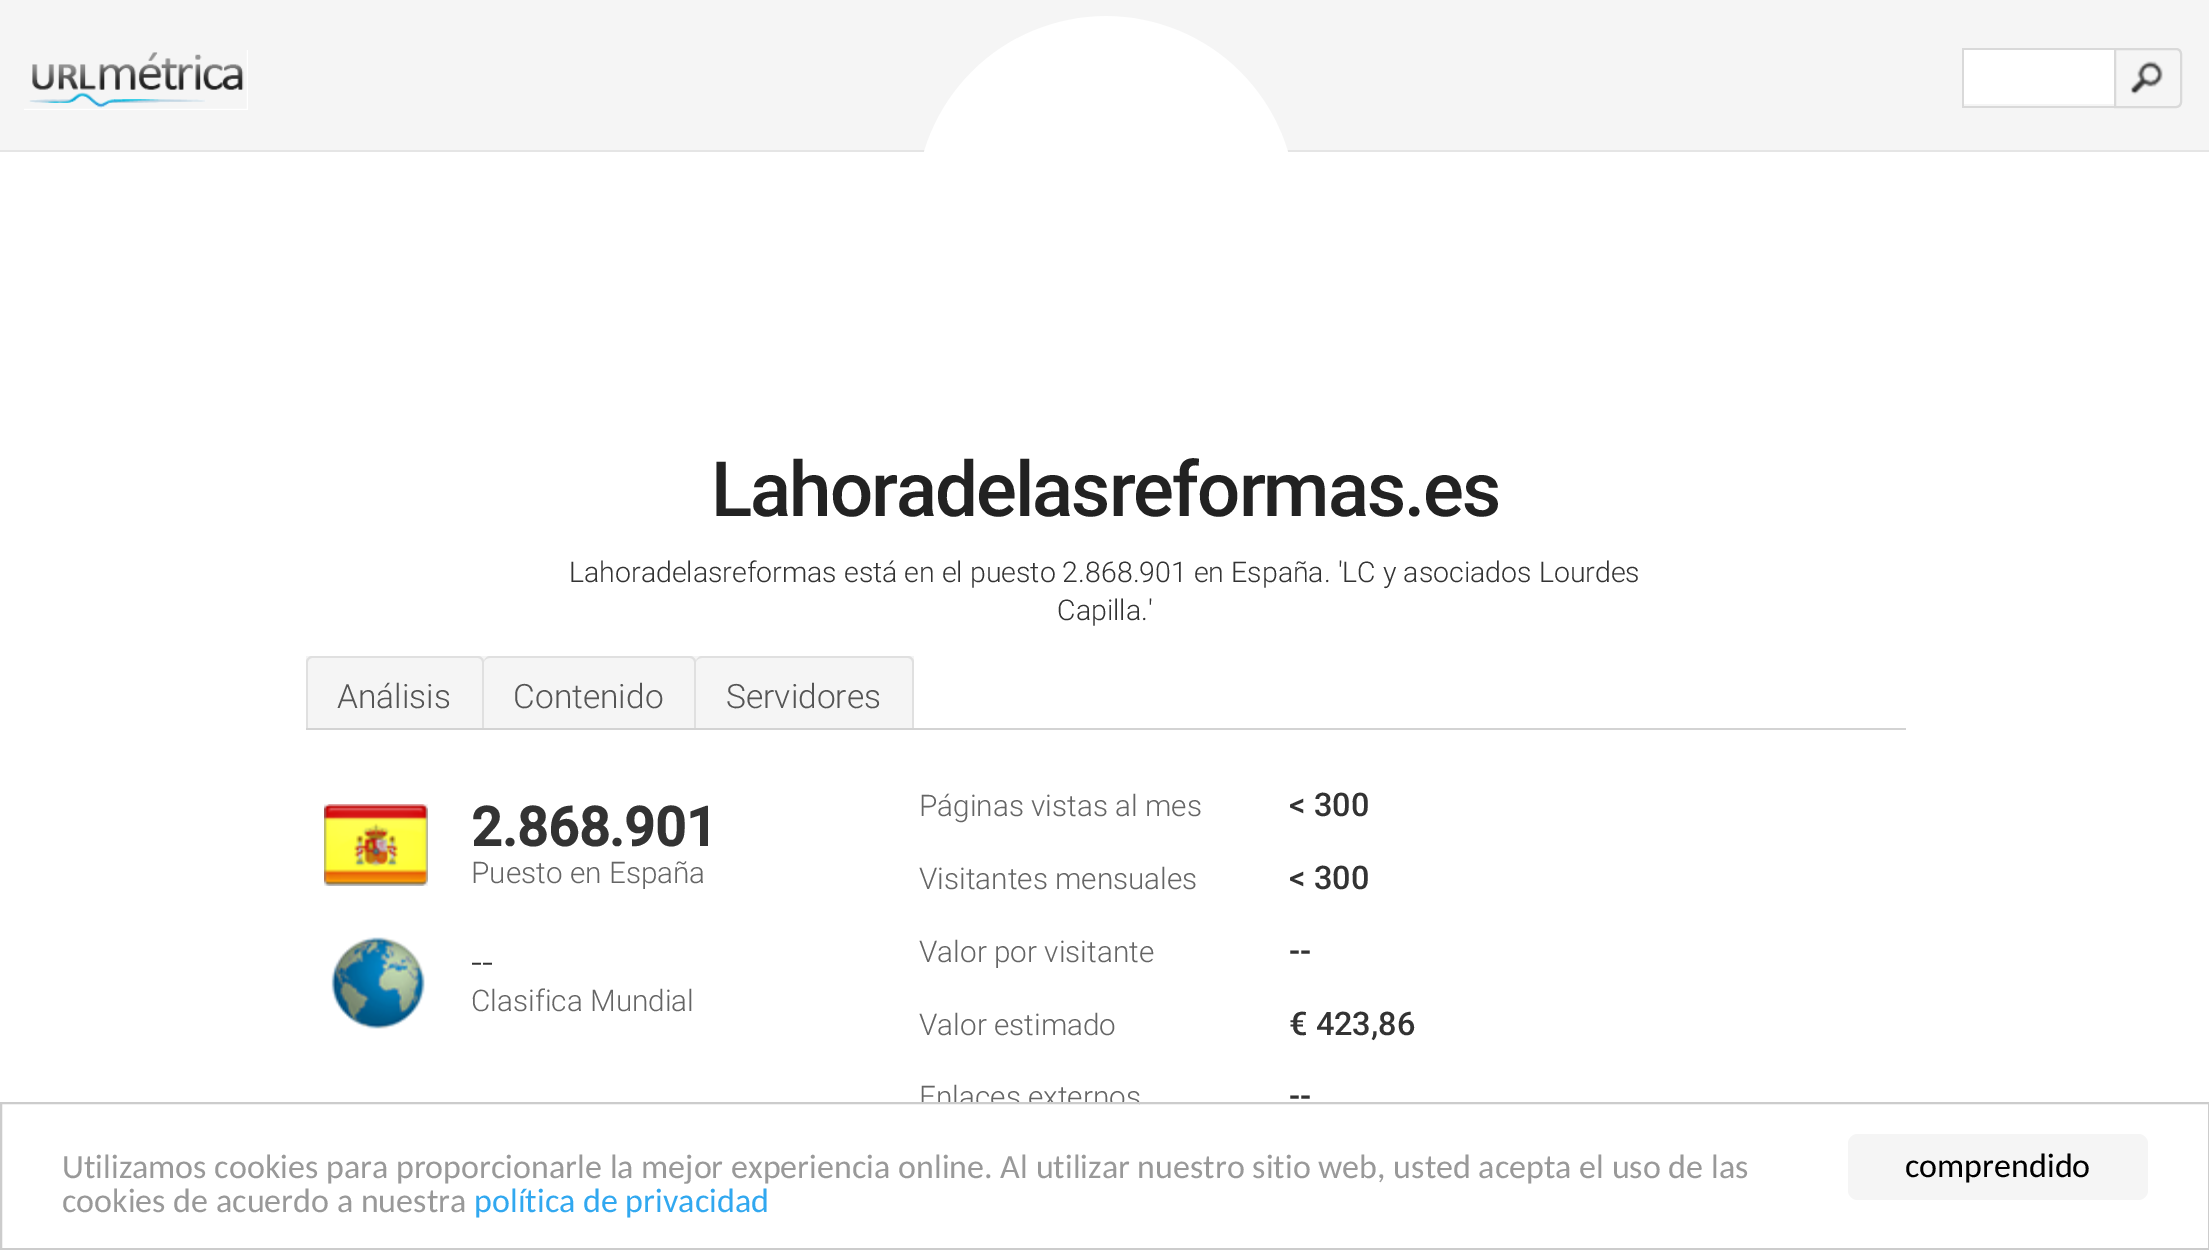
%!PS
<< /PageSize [2209 1250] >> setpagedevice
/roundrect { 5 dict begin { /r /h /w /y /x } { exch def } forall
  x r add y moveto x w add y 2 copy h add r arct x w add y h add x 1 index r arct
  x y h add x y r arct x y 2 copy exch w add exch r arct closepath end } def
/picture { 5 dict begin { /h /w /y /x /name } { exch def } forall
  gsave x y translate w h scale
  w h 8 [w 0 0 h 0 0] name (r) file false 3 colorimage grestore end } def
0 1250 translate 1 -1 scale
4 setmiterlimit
1 setgray
0 0 2209 1250 rectfill
0.961 setgray
0 0 2209 150 rectfill
0.898 setgray
0 150 2209 2 rectfill
(img1.rgb) 24 50 224 60 picture
0.851 setgray
1962 48 152 2 rectfill
1962 106 152 2 rectfill
1962 48 2 60 rectfill
1 setgray
1964 50 150 54 rectfill
(img2.rgb) 2130 61 33 34 picture
0.851 setgray
2 setlinewidth
newpath 2115 49 moveto 2176 49 lineto 2179 49 2181 51 2181 54 curveto 2181 102 lineto 2181 105 2179 107 2176 107 curveto 2115 107 lineto closepath stroke
(img3.rgb) 924 16 364 136 picture
/Roboto-Medium [76.25 0 0 -76.25 0 0] selectfont
0.133 setgray
711 516 moveto -2 0 (Lahoradelasreformas.es) ashow
/Roboto-Light [28.5 0 0 -28.5 0 0] selectfont
0.2 setgray
569 582 moveto (Lahoradelasreformas está en el puesto 2.868.901 en España. 'LC y asociados Lourdes) show
1057 620 moveto (Capilla.') show
0.827 setgray
306 728 1600 2 rectfill
0.961 setgray
306 656 608 72 rectfill
0.878 setgray
newpath 312 656 moveto 478 656 lineto 481 656 484 659 484 662 curveto 484 728 lineto 306 728 lineto 306 662 lineto 306 659 309 656 312 656 curveto closepath 312 658 moveto 478 658 lineto 480 658 482 660 482 662 curveto 482 728 lineto 308 728 lineto 308 662 lineto 308 660 310 658 312 658 curveto closepath eofill
/Roboto-Light [33.5 0 0 -33.5 0 0] selectfont
0.333 setgray
337 708 moveto (Análisis) show
0.878 setgray
newpath 490 656 moveto 690 656 lineto 693 656 696 659 696 662 curveto 696 728 lineto 484 728 lineto 484 662 lineto 484 659 487 656 490 656 curveto closepath 490 658 moveto 690 658 lineto 692 658 694 660 694 662 curveto 694 728 lineto 484 728 lineto 484 662 lineto 484 660 487 658 490 658 curveto closepath eofill
0.333 setgray
513 708 moveto (Contenido) show
0.878 setgray
newpath 702 656 moveto 908 656 lineto 911 656 914 659 914 662 curveto 914 728 lineto 696 728 lineto 696 662 lineto 696 659 699 656 702 656 curveto closepath 702 658 moveto 908 658 lineto 910 658 912 660 912 662 curveto 912 728 lineto 696 728 lineto 696 662 lineto 696 660 699 658 702 658 curveto closepath eofill
0.333 setgray
726 708 moveto (Servidores) show
(img4.rgb) 324 804 104 82 picture
/Roboto-Bold [54.25 0 0 -54.25 0 0] selectfont
0.2 setgray
471 846 moveto (2.868.901) show
/Roboto-Light [29.75 0 0 -29.75 0 0] selectfont
0.396 setgray
471 883 moveto (Puesto en España) show
(img5.rgb) 331 937 94 92 picture
/Roboto-Light [39 0 0 -39 0 0] selectfont
0.2 setgray
471 976 moveto (--) show
/Roboto-Light [29.75 0 0 -29.75 0 0] selectfont
0.396 setgray
471 1011 moveto (Clasifica Mundial) show
919 816 moveto (Páginas vistas al mes) show
/Roboto-Medium [32.5 0 0 -32.5 0 0] selectfont
0.2 setgray
1289 816 moveto (< 300) show
/Roboto-Light [29.75 0 0 -29.75 0 0] selectfont
0.396 setgray
919 889 moveto (Visitantes mensuales) show
/Roboto-Medium [32.5 0 0 -32.5 0 0] selectfont
0.2 setgray
1289 889 moveto (< 300) show
/Roboto-Light [29.75 0 0 -29.75 0 0] selectfont
0.396 setgray
919 962 moveto (Valor por visitante) show
/Roboto-Medium [32.5 0 0 -32.5 0 0] selectfont
0.2 setgray
1289 962 moveto (--) show
/Roboto-Light [29.75 0 0 -29.75 0 0] selectfont
0.396 setgray
919 1035 moveto (Valor estimado) show
/Roboto-Medium [32.5 0 0 -32.5 0 0] selectfont
0.2 setgray
1289 1035 moveto (€ 423,86) show
/Roboto-Light [29.75 0 0 -29.75 0 0] selectfont
0.396 setgray
919 1107 moveto (Enlaces externos) show
/Roboto-Medium [32.5 0 0 -32.5 0 0] selectfont
0.2 setgray
1289 1107 moveto (--) show
1 setgray
921 1104 218 4 rectfill
0.8 setgray
1 1103 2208 146 rectstroke
/Carlito-Regular [34 0 0 -34 0 0] selectfont
0.6 setgray
62 1178 moveto (Utilizamos cookies para proporcionarle la mejor experiencia online. Al utilizar nuestro sitio web, usted acepta el uso de las) show
62 1212 moveto (cookies de acuerdo a nuestra) show
0.192 0.659 0.941 setrgbcolor
474 1212 moveto (política de privacidad) show
0.961 setgray
1848 1134 300 66 10 roundrect fill
0 setgray
1905 1177 moveto (comprendido) show
showpage
